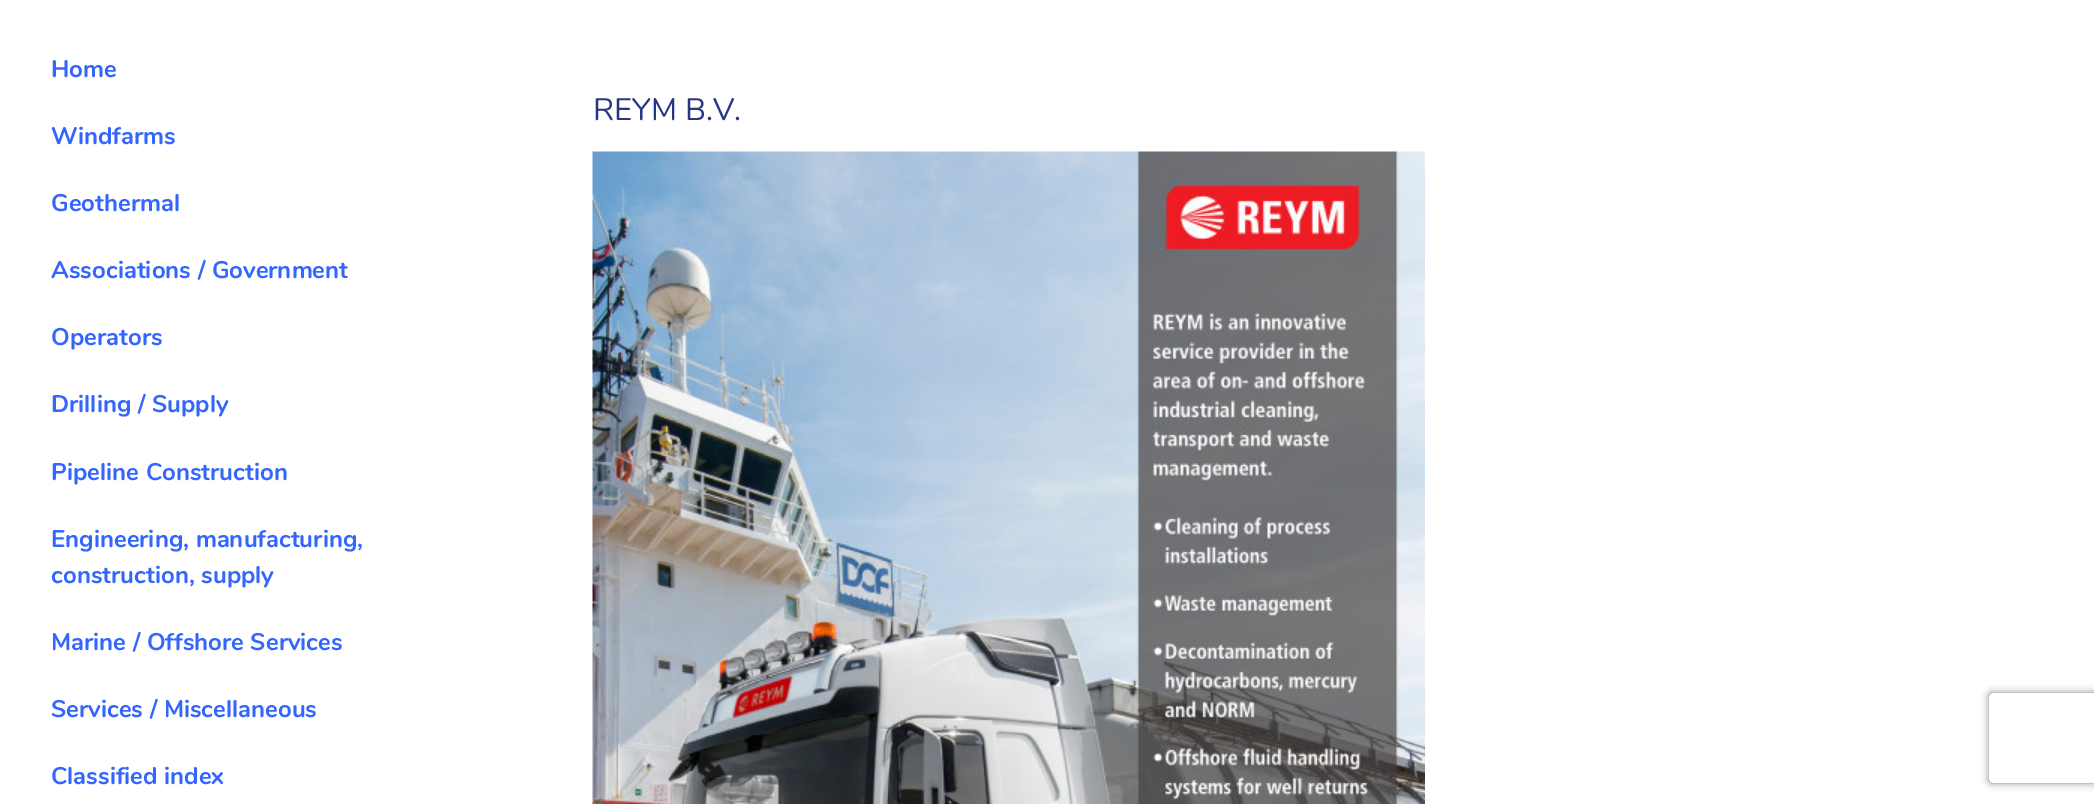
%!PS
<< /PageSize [2094 804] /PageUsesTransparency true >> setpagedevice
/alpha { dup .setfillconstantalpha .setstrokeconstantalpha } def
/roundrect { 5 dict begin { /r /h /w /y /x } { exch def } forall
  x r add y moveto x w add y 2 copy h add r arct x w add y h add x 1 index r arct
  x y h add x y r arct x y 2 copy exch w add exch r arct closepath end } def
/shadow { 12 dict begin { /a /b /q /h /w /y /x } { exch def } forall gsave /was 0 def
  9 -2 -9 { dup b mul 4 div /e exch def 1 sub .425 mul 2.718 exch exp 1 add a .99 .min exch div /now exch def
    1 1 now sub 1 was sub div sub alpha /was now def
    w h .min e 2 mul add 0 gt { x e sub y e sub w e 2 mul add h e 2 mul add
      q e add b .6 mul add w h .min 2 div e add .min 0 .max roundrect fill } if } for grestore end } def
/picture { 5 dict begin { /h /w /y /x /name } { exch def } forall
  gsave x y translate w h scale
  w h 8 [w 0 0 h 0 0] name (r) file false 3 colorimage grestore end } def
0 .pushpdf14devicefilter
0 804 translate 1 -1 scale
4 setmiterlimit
1 setgray
0 0 2094 804 rectfill
/Nunito-Bold [24 0 0 -24 0 0] selectfont
0.2 0.4 1 setrgbcolor
51 77 moveto (Home) show
51 144 moveto (Windfarms) show
51 211 moveto (Geothermal) show
51 278 moveto (Associations / Government) show
51 345 moveto (Operators) show
51 412 moveto (Drilling / Supply) show
51 480 moveto (Pipeline Construction) show
51 547 moveto (Engineering, manufacturing,) show
51 583 moveto (construction, supply) show
51 650 moveto (Marine / Offshore Services) show
51 717 moveto (Services / Miscellaneous) show
51 784 moveto (Classified index) show
/Nunito-Regular [31 0 0 -31 0 0] selectfont
0.153 0.208 0.514 setrgbcolor
593 120 moveto (REYM B.V.) show
(img1.rgb) 592 151 833 653 picture
gsave
newpath 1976 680 moveto 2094 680 lineto 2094 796 lineto 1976 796 lineto closepath 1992 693 moveto 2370 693 lineto 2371.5 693 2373 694.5 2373 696 curveto 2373 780 lineto 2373 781.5 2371.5 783 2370 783 curveto 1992 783 lineto 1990.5 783 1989 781.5 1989 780 curveto 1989 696 lineto 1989 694.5 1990.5 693 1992 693 curveto closepath eoclip newpath
0.502 setgray
1989 693 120 90 3 4 1 shadow
grestore
.poppdf14devicefilter showpage
